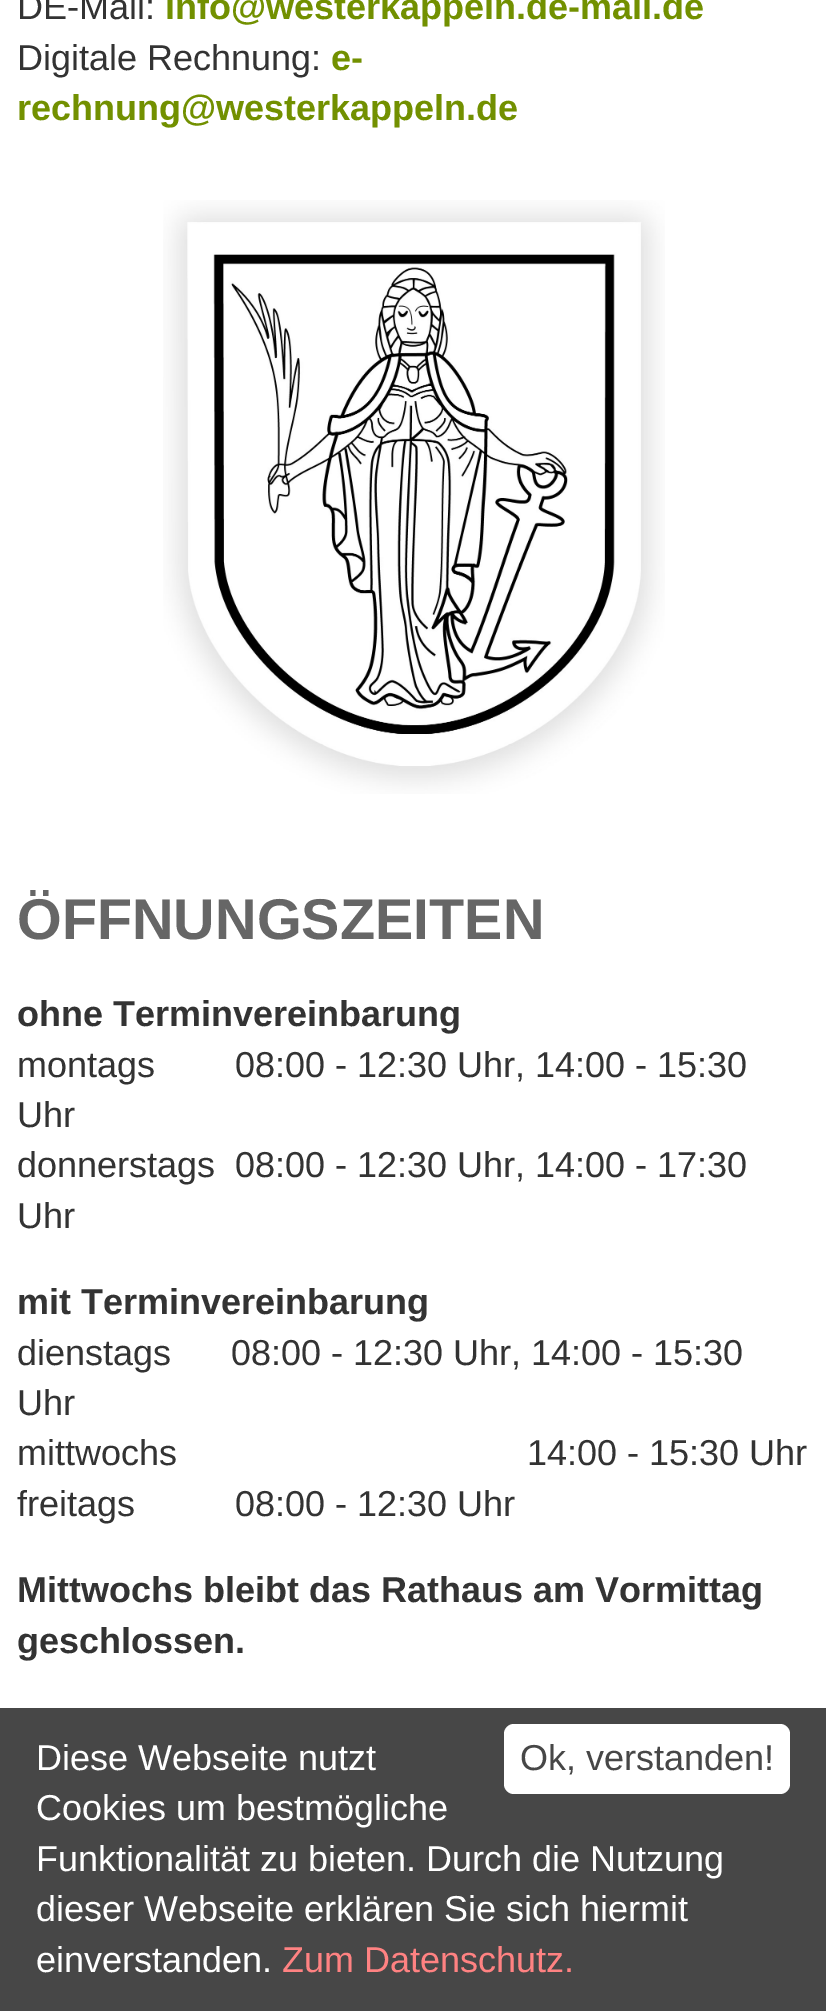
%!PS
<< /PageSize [826 2011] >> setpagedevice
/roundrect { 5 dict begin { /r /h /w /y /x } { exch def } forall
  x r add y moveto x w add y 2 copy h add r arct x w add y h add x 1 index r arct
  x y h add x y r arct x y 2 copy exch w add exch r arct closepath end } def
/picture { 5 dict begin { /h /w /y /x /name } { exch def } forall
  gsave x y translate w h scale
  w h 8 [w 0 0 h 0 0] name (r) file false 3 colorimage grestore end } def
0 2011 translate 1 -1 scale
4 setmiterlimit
1 setgray
0 0 826 2011 rectfill
/LiberationSans-Regular [36 0 0 -36 0 0] selectfont
0.2 setgray
17 19 moveto (DE-Mail:) show
/LiberationSans-Bold [36 0 0 -36 0 0] selectfont
0.447 0.565 0 setrgbcolor
165 19 moveto (info@westerkappeln.de-mail.de) show
/LiberationSans-Regular [36 0 0 -36 0 0] selectfont
0.2 setgray
17 70 moveto (Digitale Rechnung:) show
/LiberationSans-Bold [36 0 0 -36 0 0] selectfont
0.447 0.565 0 setrgbcolor
331 70 moveto (e-) show
17 120 moveto (rechnung@westerkappeln.de) show
(img1.rgb) 163 200 502 594 picture
/LiberationSans-Bold [57.5 0 0 -57.5 0 0] selectfont
0.4 setgray
17 939 moveto (ÖFFNUNGSZEITEN) show
/LiberationSans-Bold [36 0 0 -36 0 0] selectfont
0.2 setgray
17 1026 moveto (ohne Terminvereinbarung) show
/LiberationSans-Regular [36 0 0 -36 0 0] selectfont
17 1077 moveto (montags        08:00 - 12:30 Uhr, 14:00 - 15:30) show
17 1127 moveto (Uhr) show
17 1177 moveto (donnerstags  08:00 - 12:30 Uhr, 14:00 - 17:30) show
17 1228 moveto (Uhr) show
/LiberationSans-Bold [36 0 0 -36 0 0] selectfont
17 1314 moveto (mit Terminvereinbarung) show
/LiberationSans-Regular [36 0 0 -36 0 0] selectfont
17 1365 moveto (dienstags      08:00 - 12:30 Uhr, 14:00 - 15:30) show
17 1415 moveto (Uhr) show
17 1465 moveto (mittwochs                                   14:00 - 15:30 Uhr) show
17 1516 moveto (freitags          08:00 - 12:30 Uhr) show
/LiberationSans-Bold [36 0 0 -36 0 0] selectfont
17 1602 moveto (Mittwochs bleibt das Rathaus am Vormittag) show
17 1653 moveto (geschlossen.) show
0.278 setgray
0 1708 826 303 rectfill
/LiberationSans-Regular [36 0 0 -36 0 0] selectfont
1 setgray
36 1770 moveto (Diese Webseite nutzt) show
36 1820 moveto (Cookies um bestmögliche) show
36 1871 moveto (Funktionalität zu bieten. Durch die Nutzung) show
36 1921 moveto (dieser Webseite erklären Sie sich hiermit) show
36 1972 moveto (einverstanden.) show
1 0.51 0.51 setrgbcolor
282 1972 moveto (Zum Datenschutz.) show
1 setgray
504 1724 286 70 10 roundrect fill
0.278 setgray
520 1770 moveto (Ok, verstanden!) show
showpage
